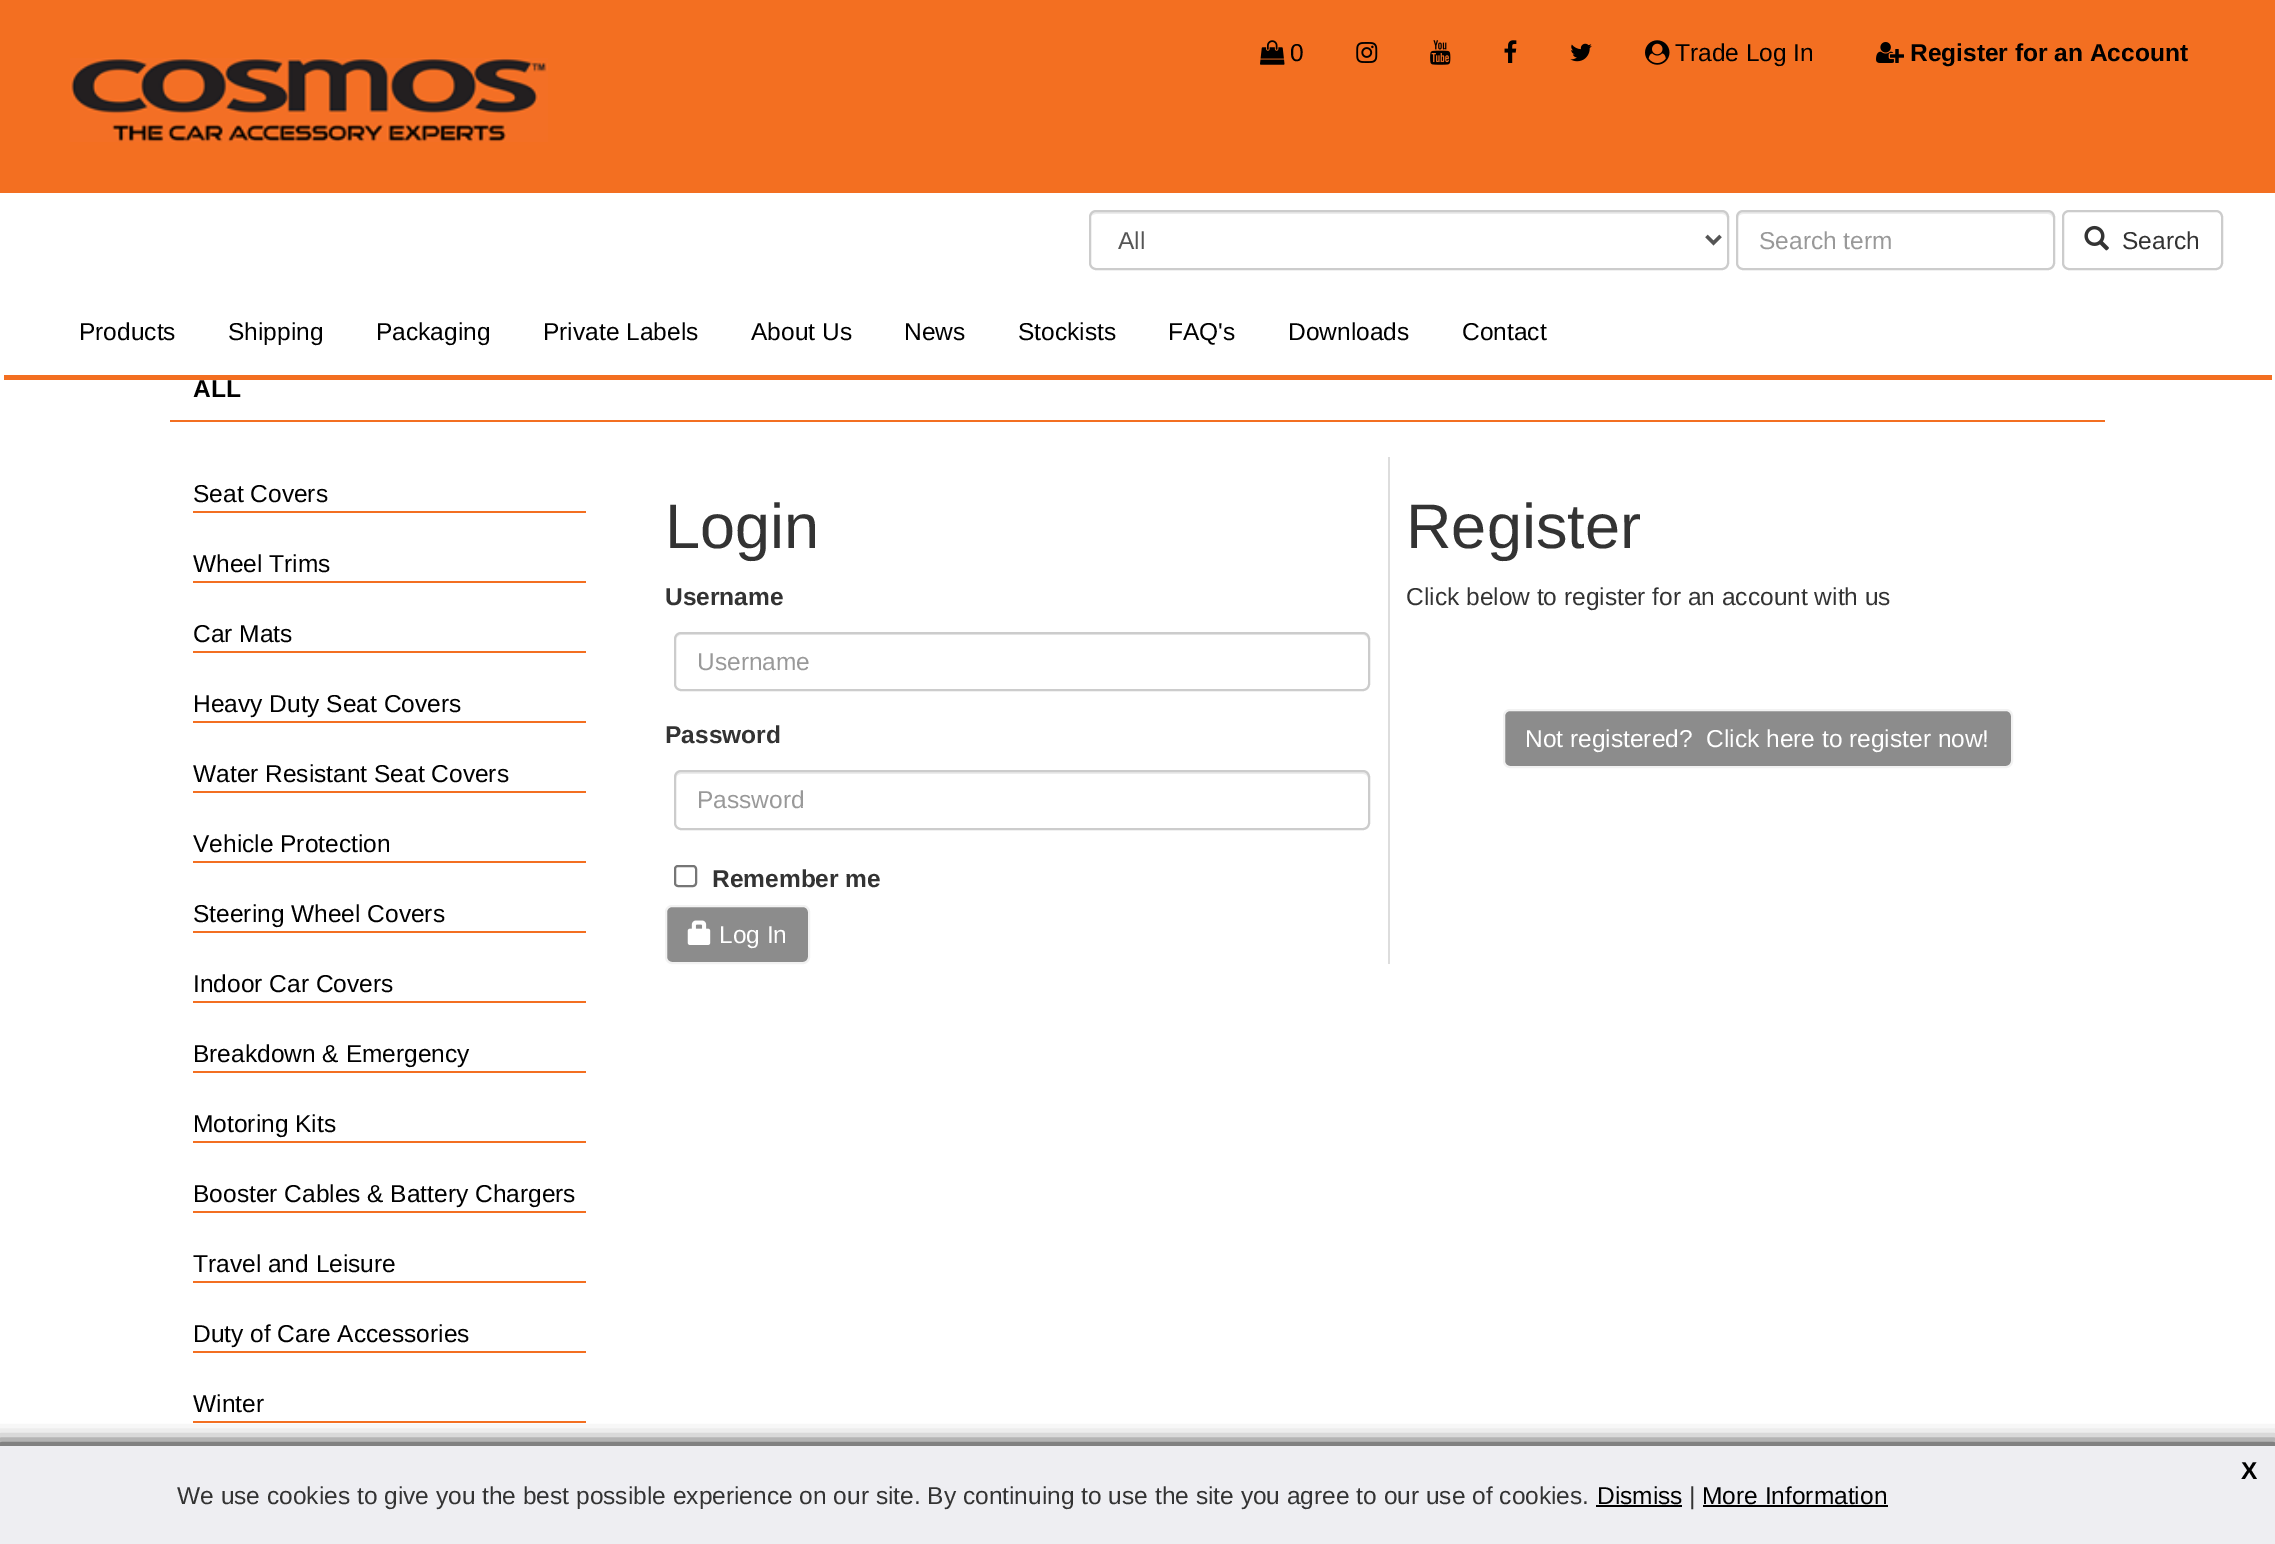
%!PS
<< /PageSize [2275 1544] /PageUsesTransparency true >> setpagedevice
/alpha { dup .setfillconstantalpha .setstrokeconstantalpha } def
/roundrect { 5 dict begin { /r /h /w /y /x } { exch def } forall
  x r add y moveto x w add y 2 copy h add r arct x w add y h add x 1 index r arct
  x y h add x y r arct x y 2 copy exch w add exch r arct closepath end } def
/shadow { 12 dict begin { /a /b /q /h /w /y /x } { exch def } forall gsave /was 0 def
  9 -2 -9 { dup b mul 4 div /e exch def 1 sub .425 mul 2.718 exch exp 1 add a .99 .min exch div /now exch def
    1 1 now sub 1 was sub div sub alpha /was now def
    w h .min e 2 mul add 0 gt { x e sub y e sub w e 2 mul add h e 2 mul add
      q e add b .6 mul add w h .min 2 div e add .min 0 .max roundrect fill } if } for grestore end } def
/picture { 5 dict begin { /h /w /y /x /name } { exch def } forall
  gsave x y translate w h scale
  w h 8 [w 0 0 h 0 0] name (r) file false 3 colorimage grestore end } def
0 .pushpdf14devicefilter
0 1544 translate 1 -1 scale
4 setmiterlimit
1 setgray
0 0 2275 1544 rectfill
0.953 0.435 0.129 setrgbcolor
0 0 2275 193 rectfill
(img1.rgb) 1260 40 25 25 picture
/LiberationSans-Regular [24.5 0 0 -24.5 0 0] selectfont
0 setgray
1290 61 moveto (0) show
(img2.rgb) 1356 42 22 21 picture
(img3.rgb) 1430 40 21 25 picture
(img4.rgb) 1504 40 13 23 picture
(img5.rgb) 1570 43 22 19 picture
(img6.rgb) 1645 40 25 25 picture
1675 61 moveto (Trade Log In) show
(img7.rgb) 1876 42 28 21 picture
/LiberationSans-Bold [24.5 0 0 -24.5 0 0] selectfont
1910 61 moveto (Register for an Account) show
(img8.rgb) 70 58 478 84 picture
0.953 0.435 0.129 setrgbcolor
4 375 2268 5 rectfill
0.925 setgray
newpath 1096 214 moveto 1722 214 lineto 1725 214 1727 216 1727 219 curveto 1727 217 lineto 1727 214 1725 212 1722 212 curveto 1095 212 lineto 1092 212 1090 214 1090 217 curveto 1090 219 lineto 1090 216 1093 214 1096 214 curveto closepath fill
0.8 setgray
2 setlinewidth
1090 211 638 58 6 roundrect stroke
0.333 setgray
3.5 setlinewidth
newpath 1706.5 236 moveto 1713.5 243 lineto 1720.5 236 lineto stroke
/LiberationSans-Regular [24.5 0 0 -24.5 0 0] selectfont
1118 249 moveto (All) show
0.925 setgray
newpath 1743 214 moveto 2048 214 lineto 2050 214 2053 216 2053 219 curveto 2053 217 lineto 2053 214 2051 212 2048 212 curveto 1743 212 lineto 1740 212 1738 214 1738 217 curveto 1738 219 lineto 1738 216 1740 214 1743 214 curveto closepath fill
0.8 setgray
2 setlinewidth
1737 211 317 58 6 roundrect stroke
0.6 setgray
1759 249 moveto (Search term) show
0.8 setgray
2063 211 159 58 6 roundrect stroke
(img9.rgb) 2084 225 25 26 picture
0.2 setgray
2122 249 moveto (Search) show
0 setgray
79 340 moveto (Products) show
228 340 moveto (Shipping) show
376 340 moveto (Packaging) show
543 340 moveto (Private Labels) show
751 340 moveto (About Us) show
904 340 moveto (News) show
1018 340 moveto (Stockists) show
1168 340 moveto (FAQ's) show
1288 340 moveto (Downloads) show
1462 340 moveto (Contact) show
0.953 0.435 0.129 setrgbcolor
170 420 1935 2 rectfill
/LiberationSans-Bold [24.5 0 0 -24.5 0 0] selectfont
0 setgray
193 397 moveto (ALL) show
0.953 0.435 0.129 setrgbcolor
193 511 393 2 rectfill
/LiberationSans-Regular [24.5 0 0 -24.5 0 0] selectfont
0 setgray
193 502 moveto (Seat Covers) show
0.953 0.435 0.129 setrgbcolor
193 581 393 2 rectfill
0 setgray
193 572 moveto (Wheel Trims) show
0.953 0.435 0.129 setrgbcolor
193 651 393 2 rectfill
0 setgray
193 642 moveto (Car Mats) show
0.953 0.435 0.129 setrgbcolor
193 721 393 2 rectfill
0 setgray
193 712 moveto (Heavy Duty Seat Covers) show
0.953 0.435 0.129 setrgbcolor
193 791 393 2 rectfill
0 setgray
193 782 moveto (Water Resistant Seat Covers) show
0.953 0.435 0.129 setrgbcolor
193 861 393 2 rectfill
0 setgray
193 852 moveto (Vehicle Protection) show
0.953 0.435 0.129 setrgbcolor
193 931 393 2 rectfill
0 setgray
193 922 moveto (Steering Wheel Covers) show
0.953 0.435 0.129 setrgbcolor
193 1001 393 2 rectfill
0 setgray
193 992 moveto (Indoor Car Covers) show
0.953 0.435 0.129 setrgbcolor
193 1071 393 2 rectfill
0 setgray
193 1062 moveto (Breakdown & Emergency) show
0.953 0.435 0.129 setrgbcolor
193 1141 393 2 rectfill
0 setgray
193 1132 moveto (Motoring Kits) show
0.953 0.435 0.129 setrgbcolor
193 1211 393 2 rectfill
0 setgray
193 1202 moveto (Booster Cables & Battery Chargers) show
0.953 0.435 0.129 setrgbcolor
193 1281 393 2 rectfill
0 setgray
193 1272 moveto (Travel and Leisure) show
0.953 0.435 0.129 setrgbcolor
193 1351 393 2 rectfill
0 setgray
193 1342 moveto (Duty of Care Accessories) show
0.953 0.435 0.129 setrgbcolor
193 1421 393 2 rectfill
0 setgray
193 1412 moveto (Winter) show
/LiberationSans-Regular [63 0 0 -63 0 0] selectfont
0.2 setgray
665 548 moveto (Login) show
/LiberationSans-Bold [24.5 0 0 -24.5 0 0] selectfont
665 605 moveto (Username) show
0.925 setgray
newpath 681 635 moveto 1363 635 lineto 1366 635 1368 638 1368 640 curveto 1368 686 lineto 1367 689 lineto 1368 688 1369 686 1369 685 curveto 1369 639 lineto 1369 636 1367 634 1364 634 curveto 681 634 lineto 678 634 676 636 676 639 curveto 676 640 lineto 676 638 678 635 681 635 curveto closepath fill
0.8 setgray
675 633 694 57 6 roundrect stroke
/LiberationSans-Regular [24.5 0 0 -24.5 0 0] selectfont
0.6 setgray
697 670 moveto (Username) show
/LiberationSans-Bold [24.5 0 0 -24.5 0 0] selectfont
0.2 setgray
665 743 moveto (Password) show
0.925 setgray
newpath 681 774 moveto 1363 774 lineto 1366 774 1368 776 1368 779 curveto 1368 824 lineto 1368 827 lineto 1368 826 1369 824 1369 823 curveto 1369 777 lineto 1369 774 1367 772 1364 772 curveto 681 772 lineto 678 772 676 774 676 777 curveto 676 779 lineto 676 776 678 774 681 774 curveto closepath fill
0.8 setgray
675 771 694 58 6 roundrect stroke
/LiberationSans-Regular [24.5 0 0 -24.5 0 0] selectfont
0.6 setgray
697 808 moveto (Password) show
0.463 setgray
675 866 21 20 3 roundrect stroke
/LiberationSans-Bold [24.5 0 0 -24.5 0 0] selectfont
0.2 setgray
712 887 moveto (Remember me) show
0.549 setgray
666 906 143 57 6 roundrect gsave fill grestore
0.949 setgray
stroke
(img10.rgb) 687 920 24 25 picture
/LiberationSans-Regular [24.5 0 0 -24.5 0 0] selectfont
1 setgray
719 943 moveto (Log In) show
0.867 setgray
1388 457 2 507 rectfill
/LiberationSans-Regular [63 0 0 -63 0 0] selectfont
0.2 setgray
1406 548 moveto (Register) show
/LiberationSans-Regular [24.5 0 0 -24.5 0 0] selectfont
1406 605 moveto (Click below to register for an account with us) show
0.549 setgray
1504 710 508 57 6 roundrect gsave fill grestore
0.949 setgray
stroke
1 setgray
1525 747 moveto (Not registered?  Click here to register now!) show
0 setgray
-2 1444 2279 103 0 9 1 shadow
0.933 0.933 0.949 setrgbcolor
0 1446 2275 98 rectfill
/LiberationSans-Bold [24.5 0 0 -24.5 0 0] selectfont
0 setgray
2241 1479 moveto (X) show
/LiberationSans-Regular [24.5 0 0 -24.5 0 0] selectfont
0.2 setgray
177 1504 moveto (We use cookies to give you the best possible experience on our site. By continuing to use the site you agree to our use of cookies.) show
0 setgray
1597 1504 moveto (Dismiss) show
1596 1505 86 2 rectfill
0.2 setgray
1689 1504 moveto (|) show
0 setgray
1702 1504 moveto (More Information) show
1703 1505 185 2 rectfill
.poppdf14devicefilter showpage
